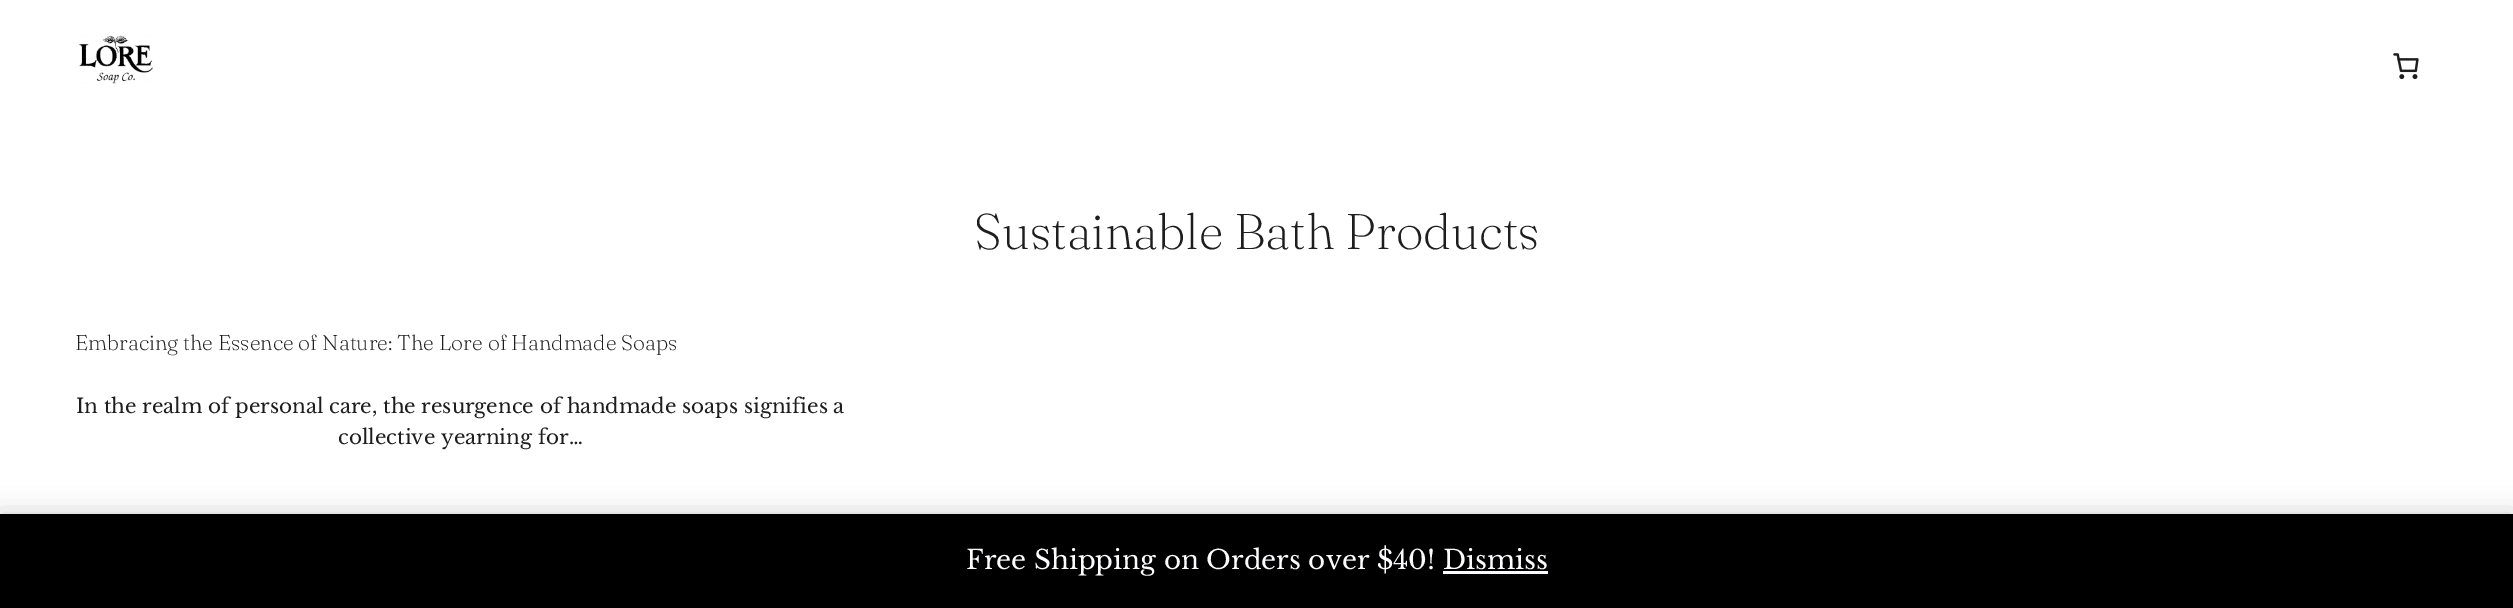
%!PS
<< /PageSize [2513 608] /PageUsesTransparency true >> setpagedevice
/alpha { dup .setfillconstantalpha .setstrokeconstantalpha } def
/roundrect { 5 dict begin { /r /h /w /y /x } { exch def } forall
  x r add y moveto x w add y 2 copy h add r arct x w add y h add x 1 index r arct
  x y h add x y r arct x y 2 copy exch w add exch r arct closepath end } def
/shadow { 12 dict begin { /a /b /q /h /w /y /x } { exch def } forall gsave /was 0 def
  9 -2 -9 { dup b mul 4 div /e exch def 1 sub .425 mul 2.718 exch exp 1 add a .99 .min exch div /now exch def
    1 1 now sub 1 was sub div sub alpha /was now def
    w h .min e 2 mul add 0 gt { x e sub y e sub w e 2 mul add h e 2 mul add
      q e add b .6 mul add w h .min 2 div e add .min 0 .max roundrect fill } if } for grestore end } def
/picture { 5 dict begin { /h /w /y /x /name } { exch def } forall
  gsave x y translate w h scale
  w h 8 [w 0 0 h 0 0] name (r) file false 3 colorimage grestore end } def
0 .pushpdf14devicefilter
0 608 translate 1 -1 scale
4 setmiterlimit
1 setgray
0 0 2513 608 rectfill
(img1.rgb) 79 35 74 49 picture
(img2.rgb) 2393 53 26 27 picture
/Fraunces-ExtraLight [50 0 0 -50 0 0] selectfont
0.118 setgray
974 249 moveto (Sustainable Bath Products) show
/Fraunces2-ExtraLight [21.25 0 0 -21.25 0 0] selectfont
75 350 moveto (Embracing the Essence of Nature: The Lore of Handmade Soaps) show
/LibreBaskerville-Regular [20 0 0 -20 0 0] selectfont
76 413 moveto (In the realm of personal care, the resurgence of handmade soaps signifies a) show
338 444 moveto (collective yearning for…) show
0 setgray
0 515 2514 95 0 13 0.2 shadow
0 514 2513 94 rectfill
/LibreBaskerville-Regular [26.25 0 0 -26.25 0 0] selectfont
0.988 0.984 0.996 setrgbcolor
966 569 moveto (Free Shipping on Orders over $40! Dismiss) show
1443 571 105 3 rectfill
.poppdf14devicefilter showpage
